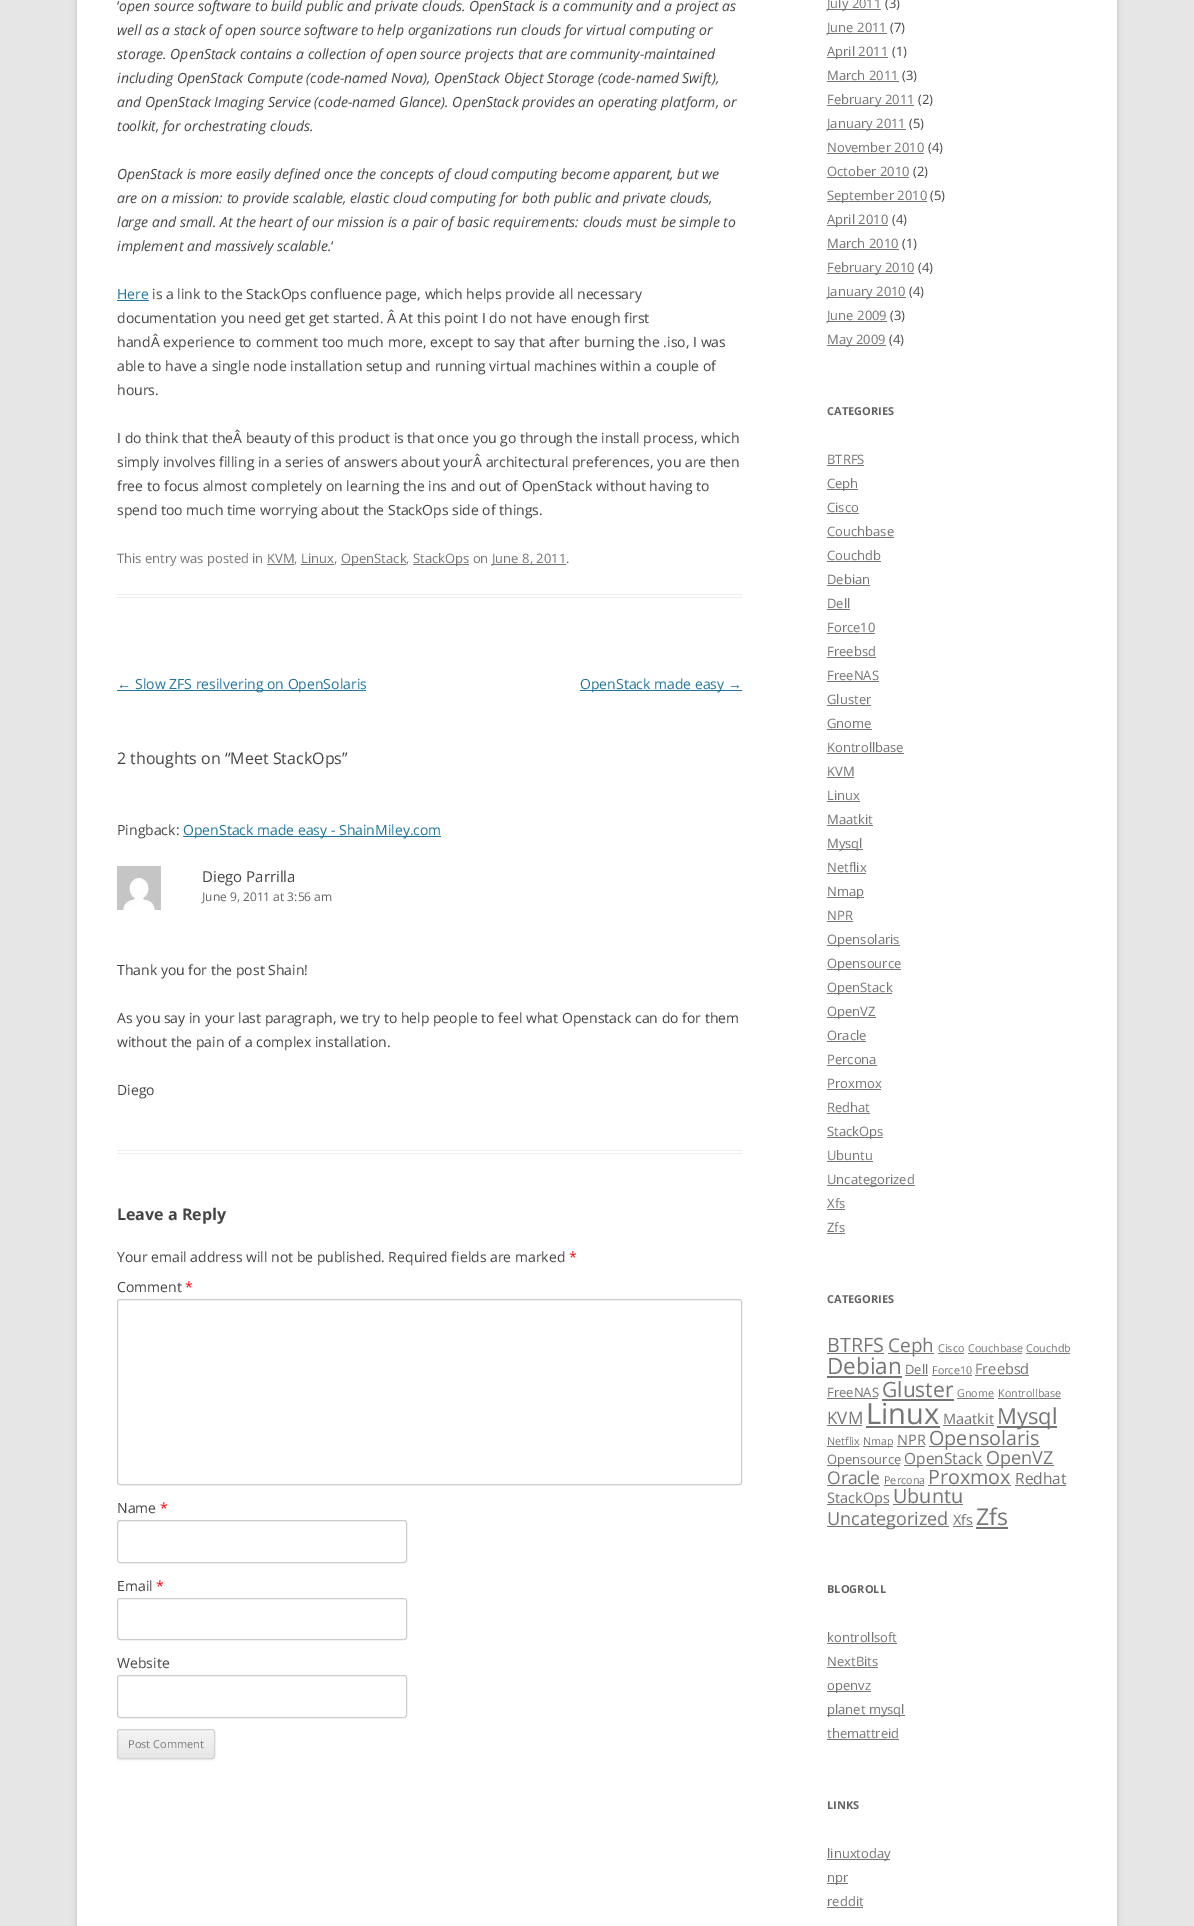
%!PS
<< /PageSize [1194 1926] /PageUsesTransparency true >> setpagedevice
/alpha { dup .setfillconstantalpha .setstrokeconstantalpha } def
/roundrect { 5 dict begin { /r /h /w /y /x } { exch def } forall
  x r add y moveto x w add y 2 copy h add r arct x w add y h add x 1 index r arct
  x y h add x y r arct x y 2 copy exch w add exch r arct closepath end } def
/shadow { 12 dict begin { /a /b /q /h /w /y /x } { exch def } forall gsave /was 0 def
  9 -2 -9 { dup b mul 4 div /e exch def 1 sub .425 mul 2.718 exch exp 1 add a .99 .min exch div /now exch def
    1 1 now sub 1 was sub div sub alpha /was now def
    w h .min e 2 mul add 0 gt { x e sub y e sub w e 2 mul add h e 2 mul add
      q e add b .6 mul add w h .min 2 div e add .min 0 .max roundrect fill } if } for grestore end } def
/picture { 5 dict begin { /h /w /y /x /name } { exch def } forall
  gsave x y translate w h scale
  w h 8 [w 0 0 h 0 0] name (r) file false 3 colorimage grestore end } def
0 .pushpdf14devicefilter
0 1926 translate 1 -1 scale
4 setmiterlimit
0.902 setgray
0 0 1194 1926 rectfill
0.392 setgray
77 -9 1040 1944 0 3 0.3 shadow
1 setgray
77 0 1040 1926 rectfill
0.929 setgray
117 594 625 1 rectfill
117 597 625 1 rectfill
/OpenSans-Regular [14 0 0 -14 0 0] selectfont
0.267 setgray
117 11 moveto (‘) show
/OpenSans-Italic [14 0 0 -14 0 0] selectfont
119 11 moveto (open source software to build public and private clouds. OpenStack is a community and a project as) show
117 35 moveto (well as a stack of open source software to help organizations run clouds for virtual computing or) show
117 59 moveto (storage. OpenStack contains a collection of open source projects that are community-maintained) show
117 83 moveto (including OpenStack Compute \(code-named Nova\), OpenStack Object Storage \(code-named Swift\),) show
117 107 moveto (and OpenStack Imaging Service \(code-named Glance\). OpenStack provides an operating platform, or) show
117 131 moveto (toolkit, for orchestrating clouds.) show
117 179 moveto (OpenStack is more easily defined once the concepts of cloud computing become apparent, but we) show
117 203 moveto (are on a mission: to provide scalable, elastic cloud computing for both public and private clouds,) show
117 227 moveto (large and small. At the heart of our mission is a pair of basic requirements: clouds must be simple to) show
117 251 moveto (implement and massively scalable.) show
/OpenSans-Regular [14 0 0 -14 0 0] selectfont
331 251 moveto (‘) show
0.129 0.459 0.608 setrgbcolor
117 299 moveto (Here) show
117 300 32 1 rectfill
0.267 setgray
152 299 moveto (is a link to the StackOps confluence page, which helps provide all necessary) show
117 323 moveto (documentation you need get get started. Â At this point I do not have enough first) show
117 347 moveto (handÂ experience to comment too much more, except to say that after burning the .iso, I was) show
117 371 moveto (able to have a single node installation setup and running virtual machines within a couple of) show
117 395 moveto (hours.) show
117 443 moveto (I do think that theÂ beauty of this product is that once you go through the install process, which) show
117 467 moveto (simply involves filling in a series of answers about yourÂ architectural preferences, you are then) show
117 491 moveto (free to focus almost completely on learning the ins and out of OpenStack without having to) show
117 515 moveto (spend too much time worrying about the StackOps side of things.) show
/OpenSans-Regular [13 0 0 -13 0 0] selectfont
0.459 setgray
117 563 moveto (This entry was posted in KVM, Linux,) show
341 564 65 1 rectfill
341 563 moveto (OpenStack,) show
413 564 56 1 rectfill
413 563 moveto (StackOps on) show
492 564 74 1 rectfill
492 563 moveto (June 8, 2011.) show
267 564 27 1 rectfill
301 564 33 1 rectfill
/LiberationSans-Regular [14 0 0 -14 0 0] selectfont
0.129 0.459 0.608 setrgbcolor
117 689 moveto (←) show
117 690 249 1 rectfill
/OpenSans-Regular [14 0 0 -14 0 0] selectfont
135 689 moveto (Slow ZFS resilvering on OpenSolaris) show
580 690 162 1 rectfill
580 689 moveto (OpenStack made easy) show
/LiberationSans-Regular [14 0 0 -14 0 0] selectfont
728 689 moveto (→) show
/OpenSans-Regular [16 0 0 -16 0 0] selectfont
0.267 setgray
117 764 moveto (2 thoughts on “Meet StackOps”) show
/OpenSans-Regular [14 0 0 -14 0 0] selectfont
117 835 moveto (Pingback:) show
0.129 0.459 0.608 setrgbcolor
183 836 258 1 rectfill
183 835 moveto (OpenStack made easy - ShainMiley.com) show
0.929 setgray
117 1150 625 1 rectfill
117 1153 625 1 rectfill
(img1.rgb) 117 866 44 44 picture
/OpenSans-Regular [15 0 0 -15 0 0] selectfont
0.267 setgray
202 882 moveto (Diego Parrilla) show
/OpenSans-Regular [12 0 0 -12 0 0] selectfont
0.388 setgray
202 901 moveto (June 9, 2011 at 3:56 am) show
/OpenSans-Regular [14 0 0 -14 0 0] selectfont
0.267 setgray
117 975 moveto (Thank you for the post Shain!) show
117 1023 moveto (As you say in your last paragraph, we try to help people to feel what Openstack can do for them) show
117 1047 moveto (without the pain of a complex installation.) show
117 1095 moveto (Diego) show
/OpenSans-Bold [16 0 0 -16 0 0] selectfont
117 1220 moveto (Leave a Reply) show
/OpenSans-Regular [14 0 0 -14 0 0] selectfont
117 1262 moveto (Your email address will not be published. Required fields are marked) show
1 0 0 setrgbcolor
569 1262 moveto (*) show
0.267 setgray
117 1292 moveto (Comment) show
1 0 0 setrgbcolor
185 1292 moveto (*) show
0.8 setgray
117.5 1299.5 624 185 2.5 roundrect stroke
0.267 setgray
117 1513 moveto (Name) show
1 0 0 setrgbcolor
160 1513 moveto (*) show
0.8 setgray
117.5 1520.5 289 42 2.5 roundrect stroke
0.267 setgray
117 1591 moveto (Email) show
1 0 0 setrgbcolor
156 1591 moveto (*) show
0.8 setgray
117.5 1598.5 289 41 2.5 roundrect stroke
0.267 setgray
117 1668 moveto (Website) show
0.8 setgray
117.5 1675.5 289 42 2.5 roundrect stroke
0.251 setgray
117 1730 98 30 3 1 0.1 shadow
gsave
117 1729 98 30 3 roundrect clip newpath
gsave newpath 117 1730 moveto 215 1730 lineto 215 1758 lineto 117 1758 lineto closepath clip newpath
<< /ShadingType 2 /ColorSpace /DeviceRGB /Coords [166 1730 166 1758] /Extend [true true] /Function << /FunctionType 2 /Domain [0 1] /C0 [0.957 0.957 0.957] /C1 [0.902 0.902 0.902] /N 1 >> >> shfill grestore
grestore
0.824 setgray
117.5 1729.5 97 29 2.5 roundrect stroke
/OpenSans-Regular [11 0 0 -11 0 0] selectfont
0.486 setgray
128 1748 moveto (Post Comment) show
0.459 setgray
827 9 54 1 rectfill
/OpenSans-Regular [13 0 0 -13 0 0] selectfont
827 8 moveto (July 2011) show
0.267 setgray
885 8 moveto (\(3\)) show
0.459 setgray
827 33 60 1 rectfill
827 32 moveto (June 2011) show
0.267 setgray
890 32 moveto (\(7\)) show
0.459 setgray
827 57 61 1 rectfill
827 56 moveto (April 2011) show
0.267 setgray
892 56 moveto (\(1\)) show
0.459 setgray
827 80 moveto (March 2011) show
827 81 72 1 rectfill
0.267 setgray
902 80 moveto (\(3\)) show
0.459 setgray
827 105 87 1 rectfill
827 104 moveto (February 2011) show
0.267 setgray
918 104 moveto (\(2\)) show
0.459 setgray
827 129 79 1 rectfill
827 128 moveto (January 2011) show
0.267 setgray
909 128 moveto (\(5\)) show
0.459 setgray
827 152 moveto (November 2010) show
827 153 97 1 rectfill
0.267 setgray
928 152 moveto (\(4\)) show
0.459 setgray
827 176 moveto (October 2010) show
827 177 82 1 rectfill
0.267 setgray
913 176 moveto (\(2\)) show
0.459 setgray
827 201 100 1 rectfill
827 200 moveto (September 2010) show
0.267 setgray
930 200 moveto (\(5\)) show
0.459 setgray
827 225 61 1 rectfill
827 224 moveto (April 2010) show
0.267 setgray
892 224 moveto (\(4\)) show
0.459 setgray
827 248 moveto (March 2010) show
827 249 72 1 rectfill
0.267 setgray
902 248 moveto (\(1\)) show
0.459 setgray
827 273 87 1 rectfill
827 272 moveto (February 2010) show
0.267 setgray
918 272 moveto (\(4\)) show
0.459 setgray
827 297 79 1 rectfill
827 296 moveto (January 2010) show
0.267 setgray
909 296 moveto (\(4\)) show
0.459 setgray
827 321 60 1 rectfill
827 320 moveto (June 2009) show
0.267 setgray
890 320 moveto (\(3\)) show
0.459 setgray
827 345 59 1 rectfill
827 344 moveto (May 2009) show
0.267 setgray
889 344 moveto (\(4\)) show
/OpenSans-Bold [11 0 0 -11 0 0] selectfont
0.388 setgray
827 415 moveto (CATEGORIES) show
/OpenSans-Regular [13 0 0 -13 0 0] selectfont
0.459 setgray
827 464 moveto (BTRFS) show
827 465 37 1 rectfill
827 489 31 1 rectfill
827 488 moveto (Ceph) show
827 512 moveto (Cisco) show
827 513 32 1 rectfill
827 536 moveto (Couchbase) show
827 537 67 1 rectfill
827 560 moveto (Couchdb) show
827 561 54 1 rectfill
827 584 moveto (Debian) show
827 585 43 1 rectfill
827 608 moveto (Dell) show
827 609 23 1 rectfill
827 632 moveto (Force10) show
827 633 48 1 rectfill
827 656 moveto (Freebsd) show
827 657 49 1 rectfill
827 680 moveto (FreeNAS) show
827 681 52 1 rectfill
827 704 moveto (Gluster) show
827 705 44 1 rectfill
827 728 moveto (Gnome) show
827 729 45 1 rectfill
827 752 moveto (Kontrollbase) show
827 753 77 1 rectfill
827 776 moveto (KVM) show
827 777 27 1 rectfill
827 800 moveto (Linux) show
827 801 33 1 rectfill
827 824 moveto (Maatkit) show
827 825 46 1 rectfill
827 849 36 1 rectfill
827 848 moveto (Mysql) show
827 872 moveto (Netflix) show
827 873 39 1 rectfill
827 897 37 1 rectfill
827 896 moveto (Nmap) show
827 920 moveto (NPR) show
827 921 26 1 rectfill
827 945 73 1 rectfill
827 944 moveto (Opensolaris) show
827 969 74 1 rectfill
827 968 moveto (Opensource) show
827 993 65 1 rectfill
827 992 moveto (OpenStack) show
827 1017 49 1 rectfill
827 1016 moveto (OpenVZ) show
827 1040 moveto (Oracle) show
827 1041 39 1 rectfill
827 1064 moveto (Percona) show
827 1065 50 1 rectfill
827 1088 moveto (Proxmox) show
827 1089 54 1 rectfill
827 1112 moveto (Redhat) show
827 1113 43 1 rectfill
827 1137 56 1 rectfill
827 1136 moveto (StackOps) show
827 1160 moveto (Ubuntu) show
827 1161 46 1 rectfill
827 1185 88 1 rectfill
827 1184 moveto (Uncategorized) show
827 1208 moveto (Xfs) show
827 1209 18 1 rectfill
827 1232 moveto (Zfs) show
827 1233 18 1 rectfill
/OpenSans-Bold [11 0 0 -11 0 0] selectfont
0.388 setgray
827 1303 moveto (CATEGORIES) show
/OpenSans-Regular [19.75 0 0 -19.75 0 0] selectfont
0.459 setgray
827 1352 moveto (BTRFS) show
827 1353 57 1 rectfill
888 1353 46 1 rectfill
/OpenSans-Regular [19 0 0 -19 0 0] selectfont
888 1352 moveto (Ceph) show
/OpenSans-Regular [10.75 0 0 -10.75 0 0] selectfont
938 1352 moveto (Cisco) show
938 1353 26 1 rectfill
968 1352 moveto (Couchbase) show
968 1353 54 1 rectfill
1026 1352 moveto (Couchdb) show
1026 1353 44 1 rectfill
/OpenSans-Regular [22.5 0 0 -22.5 0 0] selectfont
827 1374 moveto (Debian) show
827 1376 75 2 rectfill
/OpenSans-Regular [13 0 0 -13 0 0] selectfont
905 1374 moveto (Dell) show
905 1375 23 1 rectfill
/OpenSans-Regular [10.75 0 0 -10.75 0 0] selectfont
932 1374 moveto (Force10) show
932 1375 40 1 rectfill
/OpenSans-Regular [14.5 0 0 -14.5 0 0] selectfont
975 1374 moveto (Freebsd) show
975 1375 54 1 rectfill
/OpenSans-Regular [13 0 0 -13 0 0] selectfont
827 1397 moveto (FreeNAS) show
827 1398 51 1 rectfill
/OpenSans-Regular [21 0 0 -21 0 0] selectfont
882 1397 moveto (Gluster) show
882 1399 72 2 rectfill
/OpenSans-Regular [10.75 0 0 -10.75 0 0] selectfont
957 1397 moveto (Gnome) show
957 1398 37 1 rectfill
998 1397 moveto (Kontrollbase) show
998 1398 63 1 rectfill
/OpenSans-Regular [17 0 0 -17 0 0] selectfont
827 1424 moveto (KVM) show
827 1425 35 1 rectfill
/OpenSans-Regular [29 0 0 -29 0 0] selectfont
866 1424 moveto (Linux) show
866 1426 74 2 rectfill
/OpenSans-Regular [14.5 0 0 -14.5 0 0] selectfont
943 1424 moveto (Maatkit) show
943 1425 51 1 rectfill
997 1426 60 2 rectfill
/OpenSans-Regular [22 0 0 -22 0 0] selectfont
997 1424 moveto (Mysql) show
/OpenSans-Regular [10.75 0 0 -10.75 0 0] selectfont
827 1445 moveto (Netflix) show
827 1446 32 1 rectfill
863 1446 30 1 rectfill
863 1445 moveto (Nmap) show
/OpenSans-Regular [14.5 0 0 -14.5 0 0] selectfont
897 1445 moveto (NPR) show
897 1446 28 1 rectfill
929 1446 111 1 rectfill
/OpenSans-Regular [19.75 0 0 -19.75 0 0] selectfont
929 1445 moveto (Opensolaris) show
827 1465 73 1 rectfill
/OpenSans-Regular [13 0 0 -13 0 0] selectfont
827 1464 moveto (Opensource) show
904 1465 79 1 rectfill
/OpenSans-Regular [15.5 0 0 -15.5 0 0] selectfont
904 1464 moveto (OpenStack) show
986 1465 68 1 rectfill
/OpenSans-Regular [18 0 0 -18 0 0] selectfont
986 1464 moveto (OpenVZ) show
/OpenSans-Regular [17.5 0 0 -17.5 0 0] selectfont
827 1484 moveto (Oracle) show
827 1485 53 1 rectfill
/OpenSans-Regular [10.75 0 0 -10.75 0 0] selectfont
884 1484 moveto (Percona) show
884 1485 40 1 rectfill
/OpenSans-Regular [19.75 0 0 -19.75 0 0] selectfont
928 1484 moveto (Proxmox) show
928 1485 83 1 rectfill
/OpenSans-Regular [15.5 0 0 -15.5 0 0] selectfont
1015 1484 moveto (Redhat) show
1015 1485 51 1 rectfill
827 1504 62 1 rectfill
/OpenSans-Regular [14.5 0 0 -14.5 0 0] selectfont
827 1503 moveto (StackOps) show
/OpenSans-Regular [19.75 0 0 -19.75 0 0] selectfont
893 1503 moveto (Ubuntu) show
893 1504 70 1 rectfill
827 1526 122 1 rectfill
/OpenSans-Regular [18 0 0 -18 0 0] selectfont
827 1525 moveto (Uncategorized) show
/OpenSans-Regular [14.5 0 0 -14.5 0 0] selectfont
953 1525 moveto (Xfs) show
953 1526 20 1 rectfill
/OpenSans-Regular [23 0 0 -23 0 0] selectfont
976 1525 moveto (Zfs) show
976 1527 32 2 rectfill
/OpenSans-Bold [11 0 0 -11 0 0] selectfont
0.388 setgray
827 1593 moveto (BLOGROLL) show
/OpenSans-Regular [13 0 0 -13 0 0] selectfont
0.459 setgray
827 1642 moveto (kontrollsoft) show
827 1643 70 1 rectfill
827 1666 moveto (NextBits) show
827 1667 51 1 rectfill
827 1691 44 1 rectfill
827 1690 moveto (openvz) show
827 1715 78 1 rectfill
827 1714 moveto (planet mysql) show
827 1738 moveto (themattreid) show
827 1739 72 1 rectfill
/OpenSans-Bold [11 0 0 -11 0 0] selectfont
0.388 setgray
827 1809 moveto (LINKS) show
0.459 setgray
827 1859 63 1 rectfill
/OpenSans-Regular [13 0 0 -13 0 0] selectfont
827 1858 moveto (linuxtoday) show
827 1883 21 1 rectfill
827 1882 moveto (npr) show
827 1906 moveto (reddit) show
827 1907 36 1 rectfill
.poppdf14devicefilter showpage
